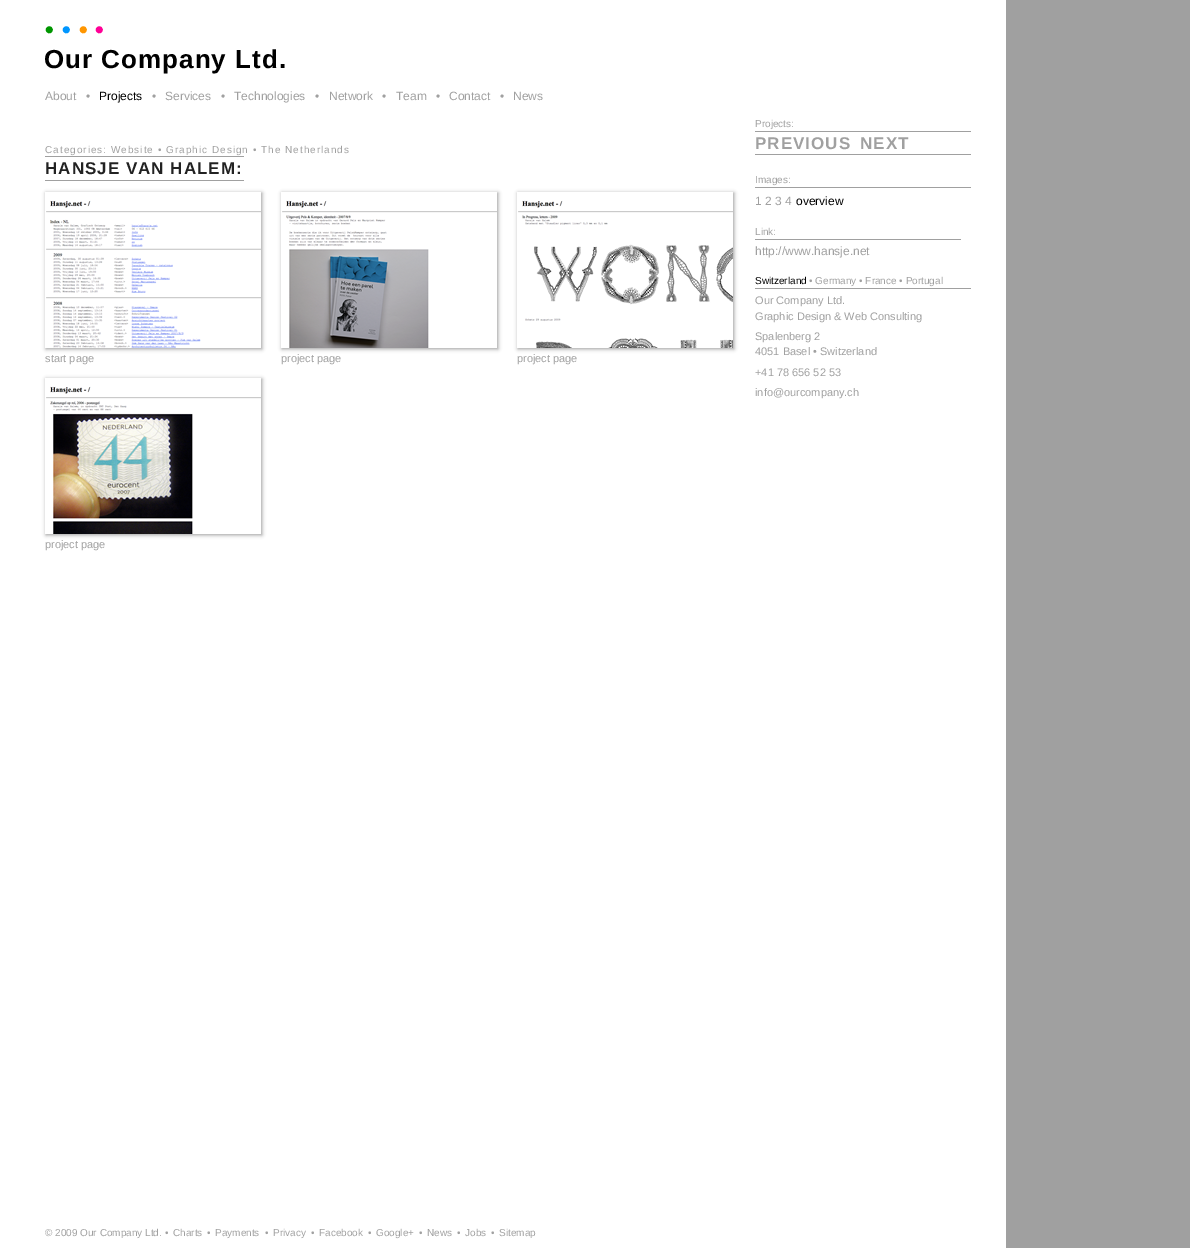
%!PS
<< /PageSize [1190 1248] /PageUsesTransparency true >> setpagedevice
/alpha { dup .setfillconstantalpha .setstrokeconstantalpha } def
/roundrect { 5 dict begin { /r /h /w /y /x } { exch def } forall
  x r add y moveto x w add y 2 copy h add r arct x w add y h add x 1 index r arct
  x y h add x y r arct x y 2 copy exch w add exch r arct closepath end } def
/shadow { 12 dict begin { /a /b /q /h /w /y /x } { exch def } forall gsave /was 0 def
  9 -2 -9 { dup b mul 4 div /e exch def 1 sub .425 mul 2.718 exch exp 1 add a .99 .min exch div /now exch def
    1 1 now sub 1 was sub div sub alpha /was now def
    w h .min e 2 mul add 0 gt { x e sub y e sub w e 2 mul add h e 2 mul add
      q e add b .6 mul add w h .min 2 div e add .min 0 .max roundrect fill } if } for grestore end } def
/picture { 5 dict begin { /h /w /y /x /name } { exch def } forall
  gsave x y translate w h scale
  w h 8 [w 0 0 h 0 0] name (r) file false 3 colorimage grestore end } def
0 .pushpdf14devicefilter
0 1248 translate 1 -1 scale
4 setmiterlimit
0.627 setgray
0 0 1190 1248 rectfill
1 setgray
0 0 1006 1248 rectfill
/LiberationSans-Bold [25 0 0 -25 0 0] selectfont
0 0.588 0 setrgbcolor
45 38 moveto (•) show
0 0.588 1 setrgbcolor
62 38 moveto (•) show
1 0.588 0 setrgbcolor
79 38 moveto (•) show
1 0 0.588 setrgbcolor
95 38 moveto (•) show
/LiberationSans-Bold [26 0 0 -26 0 0] selectfont
0 setgray
44 68 moveto 1 0 (Our Company Ltd.) ashow
/LiberationSans-Regular [12 0 0 -12 0 0] selectfont
0.627 setgray
45 100 moveto (About) show
86 100 moveto (•) show
0 setgray
99 100 moveto (Projects) show
0.627 setgray
152 100 moveto (•) show
165 100 moveto (Services) show
221 100 moveto (•) show
234 100 moveto (Technologies) show
315 100 moveto (•) show
329 100 moveto (Network) show
382 100 moveto (•) show
396 100 moveto (Team) show
436 100 moveto (•) show
449 100 moveto (Contact) show
500 100 moveto (•) show
513 100 moveto (News) show
/LiberationSans-Regular [10 0 0 -10 0 0] selectfont
45 153 moveto 1 0 (Categories: Website • Graphic Design • The Netherlands) ashow
45 156 199 1 rectfill
45 180 199 1 rectfill
/LiberationSans-Bold [17 0 0 -17 0 0] selectfont
0.133 setgray
45 174 moveto 1 0 (HANSJE VAN HALEM:) ashow
gsave
newpath 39 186 moveto 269 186 lineto 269 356 lineto 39 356 lineto closepath 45 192 moveto 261 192 lineto 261 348 lineto 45 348 lineto closepath eoclip newpath
0.6 setgray
46 193 216 156 0 2 1 shadow
grestore
(img1.rgb) 46 200 215 148 picture
/LiberationSans-Regular [11 0 0 -11 0 0] selectfont
0.627 setgray
45 362 moveto (start page) show
gsave
newpath 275 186 moveto 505 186 lineto 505 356 lineto 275 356 lineto closepath 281 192 moveto 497 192 lineto 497 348 lineto 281 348 lineto closepath eoclip newpath
0.6 setgray
282 193 216 156 0 2 1 shadow
grestore
(img2.rgb) 282 200 215 148 picture
281 362 moveto (project page) show
gsave
newpath 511 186 moveto 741 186 lineto 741 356 lineto 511 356 lineto closepath 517 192 moveto 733 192 lineto 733 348 lineto 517 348 lineto closepath eoclip newpath
0.6 setgray
518 193 216 156 0 2 1 shadow
grestore
(img3.rgb) 518 200 215 148 picture
517 362 moveto (project page) show
gsave
newpath 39 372 moveto 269 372 lineto 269 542 lineto 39 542 lineto closepath 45 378 moveto 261 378 lineto 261 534 lineto 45 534 lineto closepath eoclip newpath
0.6 setgray
46 379 216 156 0 2 1 shadow
grestore
(img4.rgb) 46 386 215 148 picture
45 548 moveto (project page) show
755 131 216 1 rectfill
/LiberationSans-Regular [10 0 0 -10 0 0] selectfont
755 127 moveto (Projects:) show
755 154 216 1 rectfill
/LiberationSans-Bold [17 0 0 -17 0 0] selectfont
755 149 moveto 1 0 (PREVIOUS) ashow
860 149 moveto 1 0 (NEXT) ashow
755 187 216 1 rectfill
/LiberationSans-Regular [10 0 0 -10 0 0] selectfont
755 183 moveto (Images:) show
/LiberationSans-Regular [12 0 0 -12 0 0] selectfont
755 205 moveto (1 2 3 4) show
0 setgray
796 205 moveto (overview) show
0.627 setgray
755 239 206 1 rectfill
/LiberationSans-Regular [10 0 0 -10 0 0] selectfont
755 235 moveto (Link:) show
/LiberationSans-Regular [12 0 0 -12 0 0] selectfont
755 255 moveto (http://www.hansje.net) show
755 288 216 1 rectfill
/LiberationSans-Regular [10 0 0 -10 0 0] selectfont
0 setgray
755 284 moveto (Switzerland) show
0.627 setgray
809 284 moveto (• Germany • France • Portugal) show
/LiberationSans-Regular [11 0 0 -11 0 0] selectfont
755 304 moveto (Our Company Ltd.) show
755 320 moveto (Graphic Design & Web Consulting) show
755 340 moveto (Spalenberg 2) show
755 355 moveto (4051 Basel • Switzerland) show
755 376 moveto (+41 78 656 52 53) show
755 396 moveto (info@ourcompany.ch) show
/LiberationSans-Regular [10 0 0 -10 0 0] selectfont
45 1236 moveto (© 2009 Our Company Ltd. •) show
173 1236 moveto (Charts) show
207 1236 moveto (•) show
215 1236 moveto (Payments) show
265 1236 moveto (•) show
273 1236 moveto (Privacy) show
311 1236 moveto (•) show
319 1236 moveto (Facebook) show
368 1236 moveto (•) show
376 1236 moveto (Google+) show
419 1236 moveto (•) show
427 1236 moveto (News) show
457 1236 moveto (•) show
465 1236 moveto (Jobs) show
491 1236 moveto (•) show
499 1236 moveto (Sitemap) show
.poppdf14devicefilter showpage
